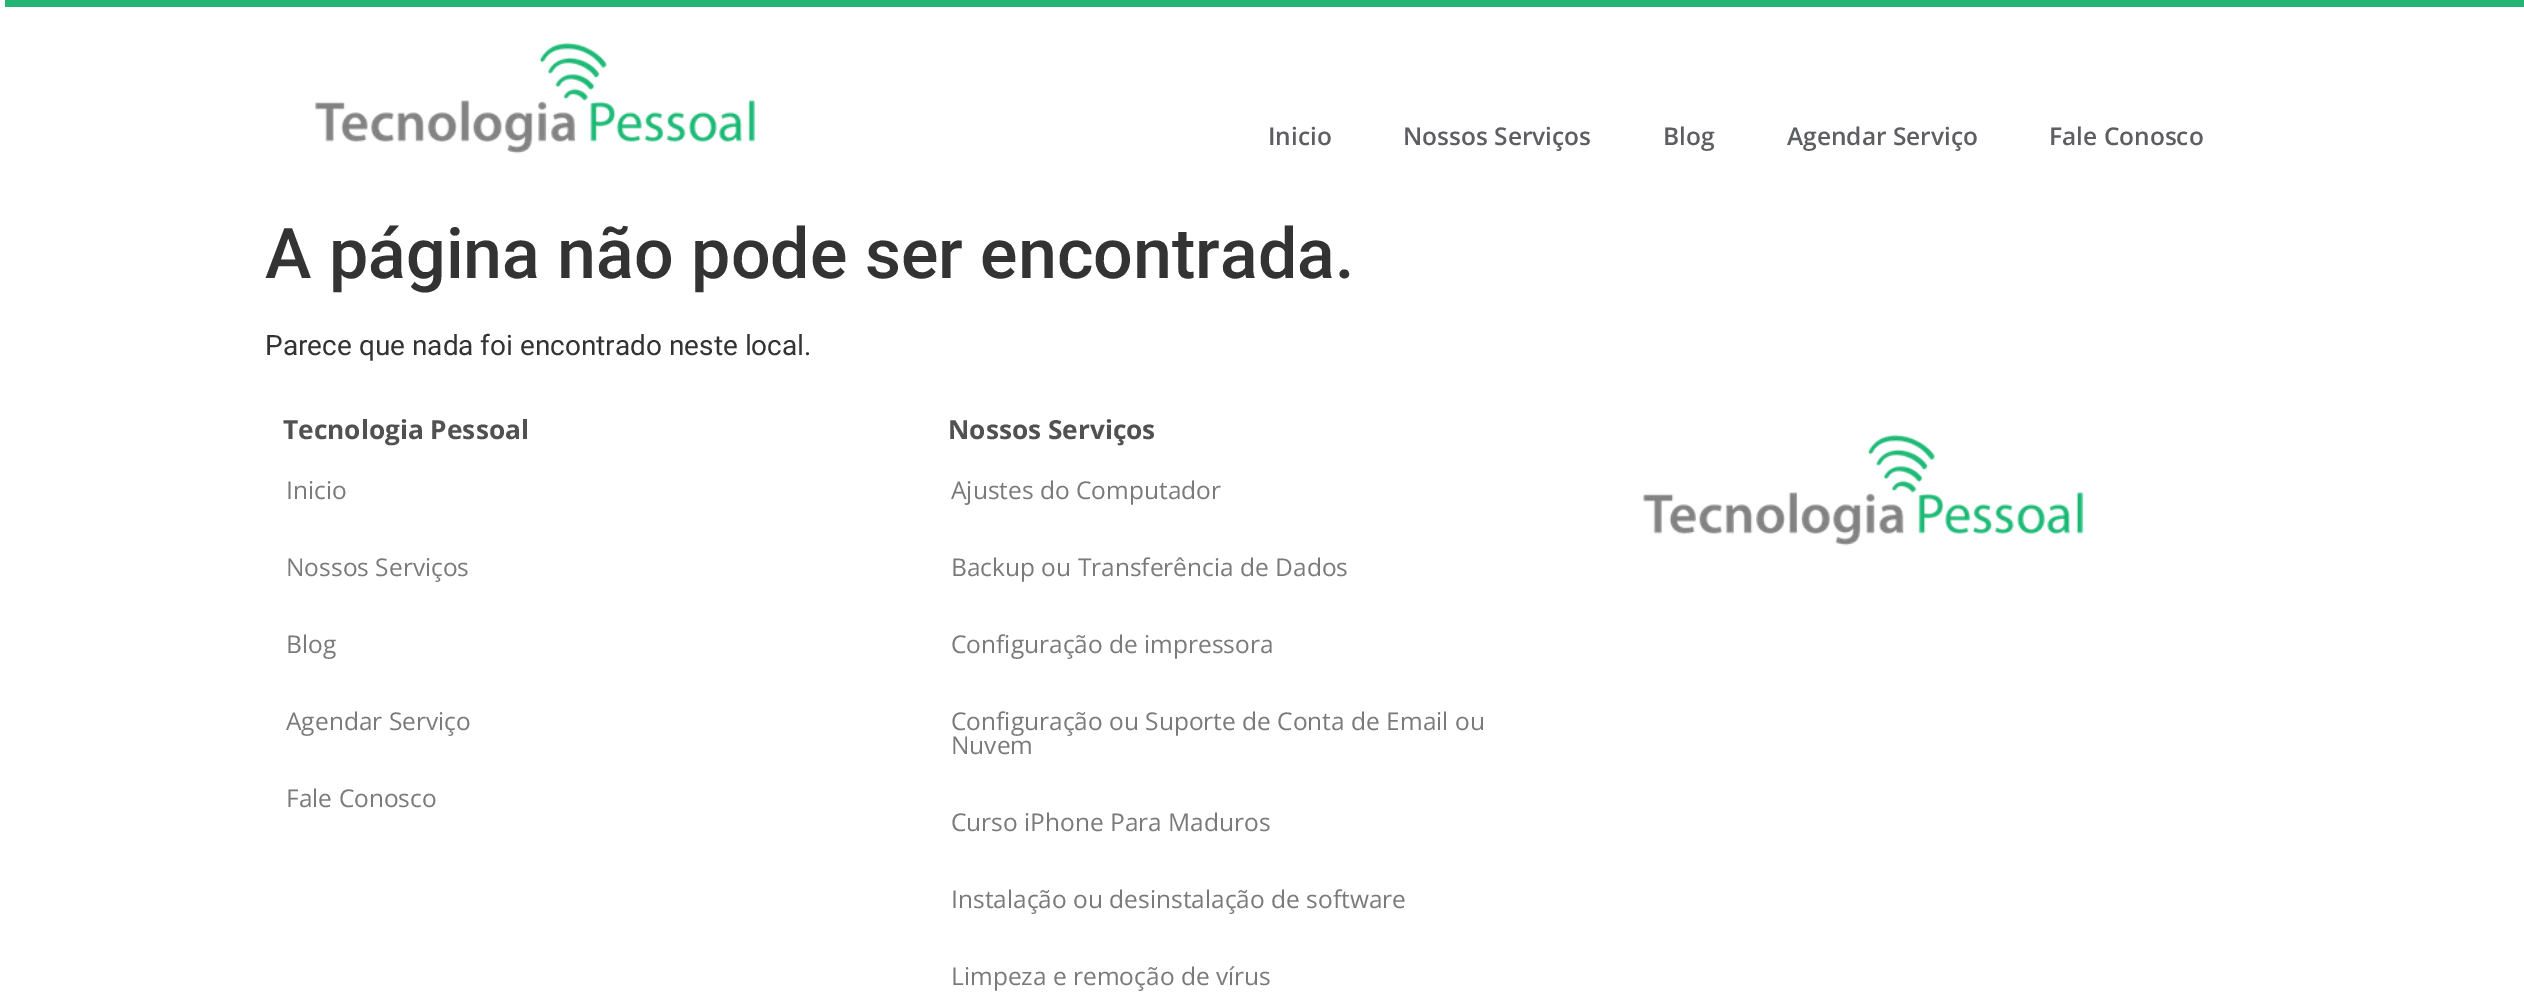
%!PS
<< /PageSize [2524 1007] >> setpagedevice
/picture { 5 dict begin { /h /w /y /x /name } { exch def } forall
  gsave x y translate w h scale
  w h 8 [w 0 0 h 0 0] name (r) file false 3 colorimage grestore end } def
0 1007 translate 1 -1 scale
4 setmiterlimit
1 setgray
0 0 2524 1007 rectfill
0.141 0.706 0.455 setrgbcolor
5 0 2519 7 rectfill
(img1.rgb) 315 42 440 112 picture
/OpenSans-SemiBold [24.5 0 0 -24.5 0 0] selectfont
0.365 0.369 0.38 setrgbcolor
1268 145 moveto (Inicio) show
1403 145 moveto (Nossos Serviços) show
1663 145 moveto (Blog) show
1787 145 moveto (Agendar Serviço) show
2049 145 moveto (Fale Conosco) show
/Roboto-Medium [70 0 0 -70 0 0] selectfont
0.2 setgray
265 278 moveto (A página não pode ser encontrada.) show
/Roboto-Regular [28 0 0 -28 0 0] selectfont
265 355 moveto (Parece que nada foi encontrado neste local.) show
/OpenSans-Bold [26.25 0 0 -26.25 0 0] selectfont
0.318 setgray
283 439 moveto (Tecnologia Pessoal) show
/OpenSans-Regular [24.5 0 0 -24.5 0 0] selectfont
0.478 setgray
286 499 moveto (Inicio) show
286 576 moveto (Nossos Serviços) show
286 653 moveto (Blog) show
286 730 moveto (Agendar Serviço) show
286 807 moveto (Fale Conosco) show
/OpenSans-Bold [26.25 0 0 -26.25 0 0] selectfont
0.318 setgray
948 439 moveto (Nossos Serviços) show
/OpenSans-Regular [24.5 0 0 -24.5 0 0] selectfont
0.478 setgray
951 499 moveto (Ajustes do Computador) show
951 576 moveto (Backup ou Transferência de Dados) show
951 653 moveto (Configuração de impressora) show
951 730 moveto (Configuração ou Suporte de Conta de Email ou) show
951 754 moveto (Nuvem) show
951 831 moveto (Curso iPhone Para Maduros) show
951 908 moveto (Instalação ou desinstalação de software) show
951 985 moveto (Limpeza e remoção de vírus) show
(img2.rgb) 1643 434 441 112 picture
showpage
